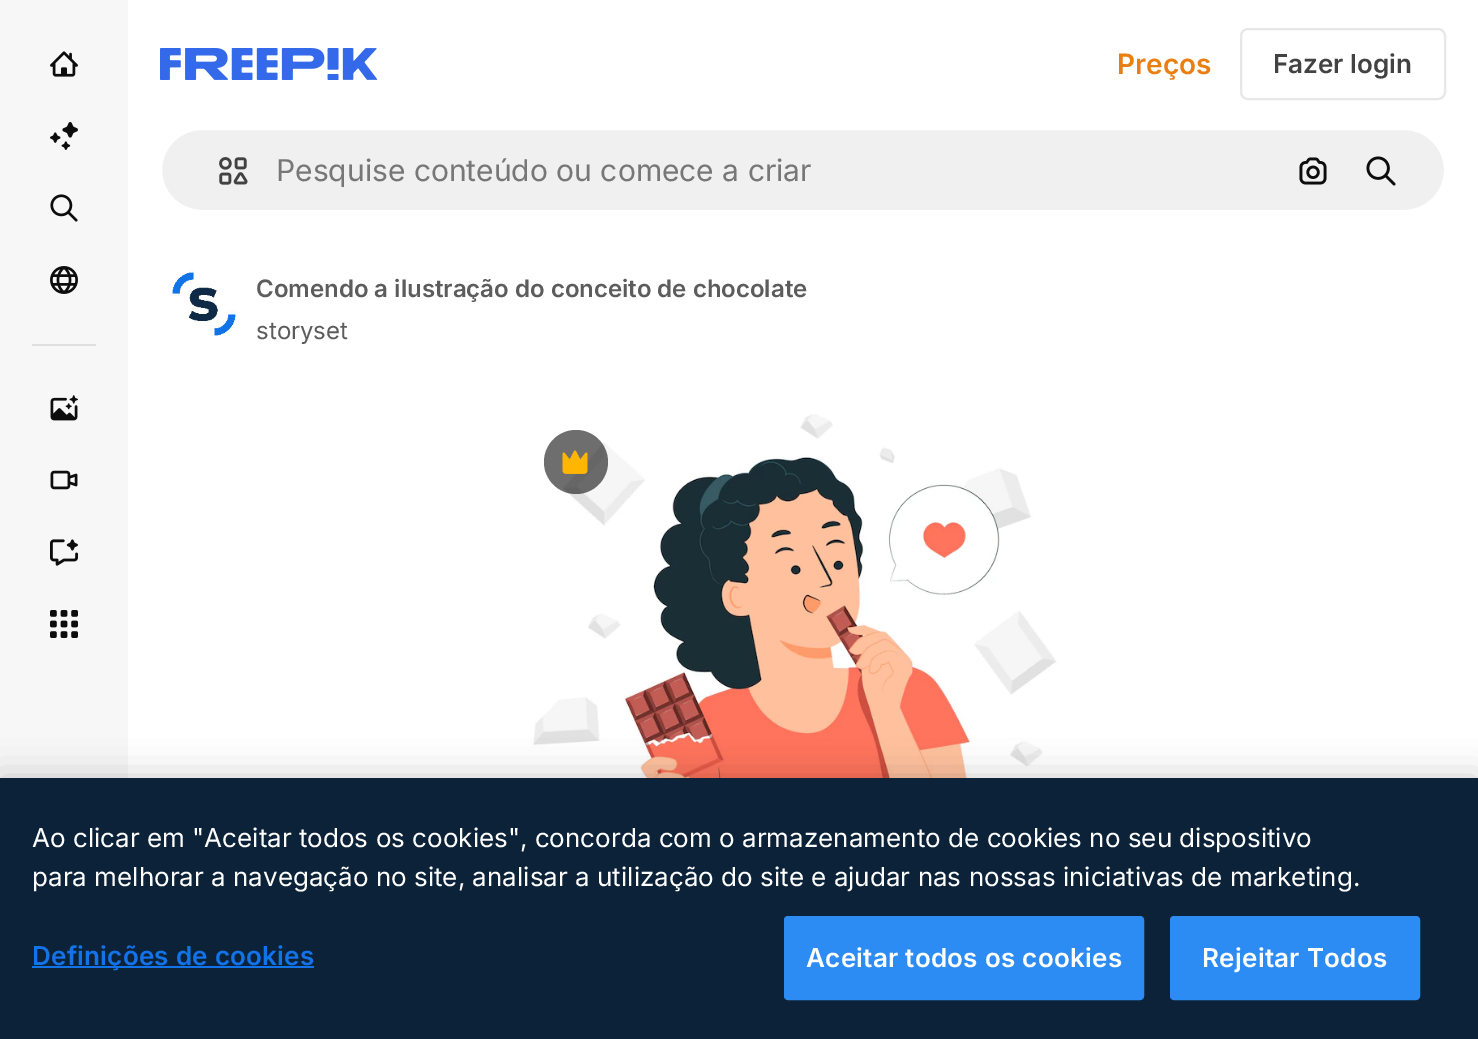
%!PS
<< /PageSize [1478 1039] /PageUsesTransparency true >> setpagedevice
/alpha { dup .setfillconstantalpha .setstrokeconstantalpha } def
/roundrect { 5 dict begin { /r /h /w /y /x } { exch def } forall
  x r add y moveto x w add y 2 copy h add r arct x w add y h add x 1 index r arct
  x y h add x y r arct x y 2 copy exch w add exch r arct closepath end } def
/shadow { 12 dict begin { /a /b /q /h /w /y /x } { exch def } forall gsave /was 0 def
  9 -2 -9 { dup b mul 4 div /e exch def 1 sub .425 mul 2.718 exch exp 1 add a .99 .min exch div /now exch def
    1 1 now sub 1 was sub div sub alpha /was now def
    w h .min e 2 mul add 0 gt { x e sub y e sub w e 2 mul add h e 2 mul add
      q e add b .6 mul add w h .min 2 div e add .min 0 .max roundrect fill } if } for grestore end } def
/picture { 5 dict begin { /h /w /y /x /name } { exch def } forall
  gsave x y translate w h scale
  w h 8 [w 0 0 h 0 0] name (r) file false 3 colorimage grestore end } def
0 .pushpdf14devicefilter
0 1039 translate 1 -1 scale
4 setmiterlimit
1 setgray
0 0 1478 1039 rectfill
0.969 setgray
0 0 128 778 rectfill
(img1.rgb) 50 51 28 26 picture
(img2.rgb) 50 122 28 28 picture
(img3.rgb) 50 194 28 28 picture
(img4.rgb) 50 266 28 28 picture
0.878 setgray
32 344 64 2 rectfill
(img5.rgb) 50 395 28 26 picture
(img6.rgb) 50 470 28 20 picture
(img7.rgb) 50 539 28 27 picture
(img8.rgb) 50 610 28 28 picture
(img9.rgb) 160 48 218 32 picture
/Inter-SemiBold [28 0 0 -28 0 0] selectfont
0.918 0.494 0.067 setrgbcolor
1117 74 moveto (Preços) show
0.906 setgray
2 setlinewidth
1241 29 204 70 7 roundrect stroke
/Inter-SemiBold [26 0 0 -26 0 0] selectfont
0.259 setgray
1273 73 moveto (Fazer login) show
0.941 setgray
161 129 1284 82 41 roundrect gsave fill grestore
1 setgray
stroke
(img10.rgb) 219 157 29 28 picture
/Inter-Regular [30 0 0 -30 0 0] selectfont
0.467 setgray
276 181 moveto (Pesquise conteúdo ou comece a criar) show
(img11.rgb) 1299 157 28 28 picture
(img12.rgb) 1366 156 30 30 picture
(img13.rgb) 170 270 66 66 picture
/Inter-SemiBold [24 0 0 -24 0 0] selectfont
0.361 setgray
256 297 moveto (Comendo a ilustração do conceito de chocolate) show
/Inter-Regular [24 0 0 -24 0 0] selectfont
256 339 moveto (storyset) show
(img14.rgb) 533 414 535 364 picture
0.6 alpha
0.051 setgray
newpath 576 462 32 0 360 arc closepath fill
1 alpha
(img15.rgb) 562 450 26 24 picture
0 setgray
0 778 1478 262 0 18 0.2 shadow
0.043 0.133 0.224 setrgbcolor
0 778 1478 261 rectfill
/Inter-Regular [26.02 0 0 -26.02 0 0] selectfont
1 setgray
32 847 moveto (Ao clicar em "Aceitar todos os cookies", concorda com o armazenamento de cookies no seu dispositivo) show
32 886 moveto (para melhorar a navegação no site, analisar a utilização do site e ajudar nas nossas iniciativas de marketing.) show
0.071 0.451 0.922 setrgbcolor
32 966 282 2 rectfill
/Inter-SemiBold [26.02 0 0 -26.02 0 0] selectfont
32 965 moveto 0.25 0 (Definições de cookies) ashow
0.173 0.549 0.957 setrgbcolor
785 917 358 82 3 roundrect gsave fill grestore
stroke
1 setgray
806 967 moveto 0.25 0 (Aceitar todos os cookies) ashow
0.173 0.549 0.957 setrgbcolor
1171 917 248 82 3 roundrect gsave fill grestore
stroke
1 setgray
1202 967 moveto 0.25 0 (Rejeitar Todos) ashow
.poppdf14devicefilter showpage
